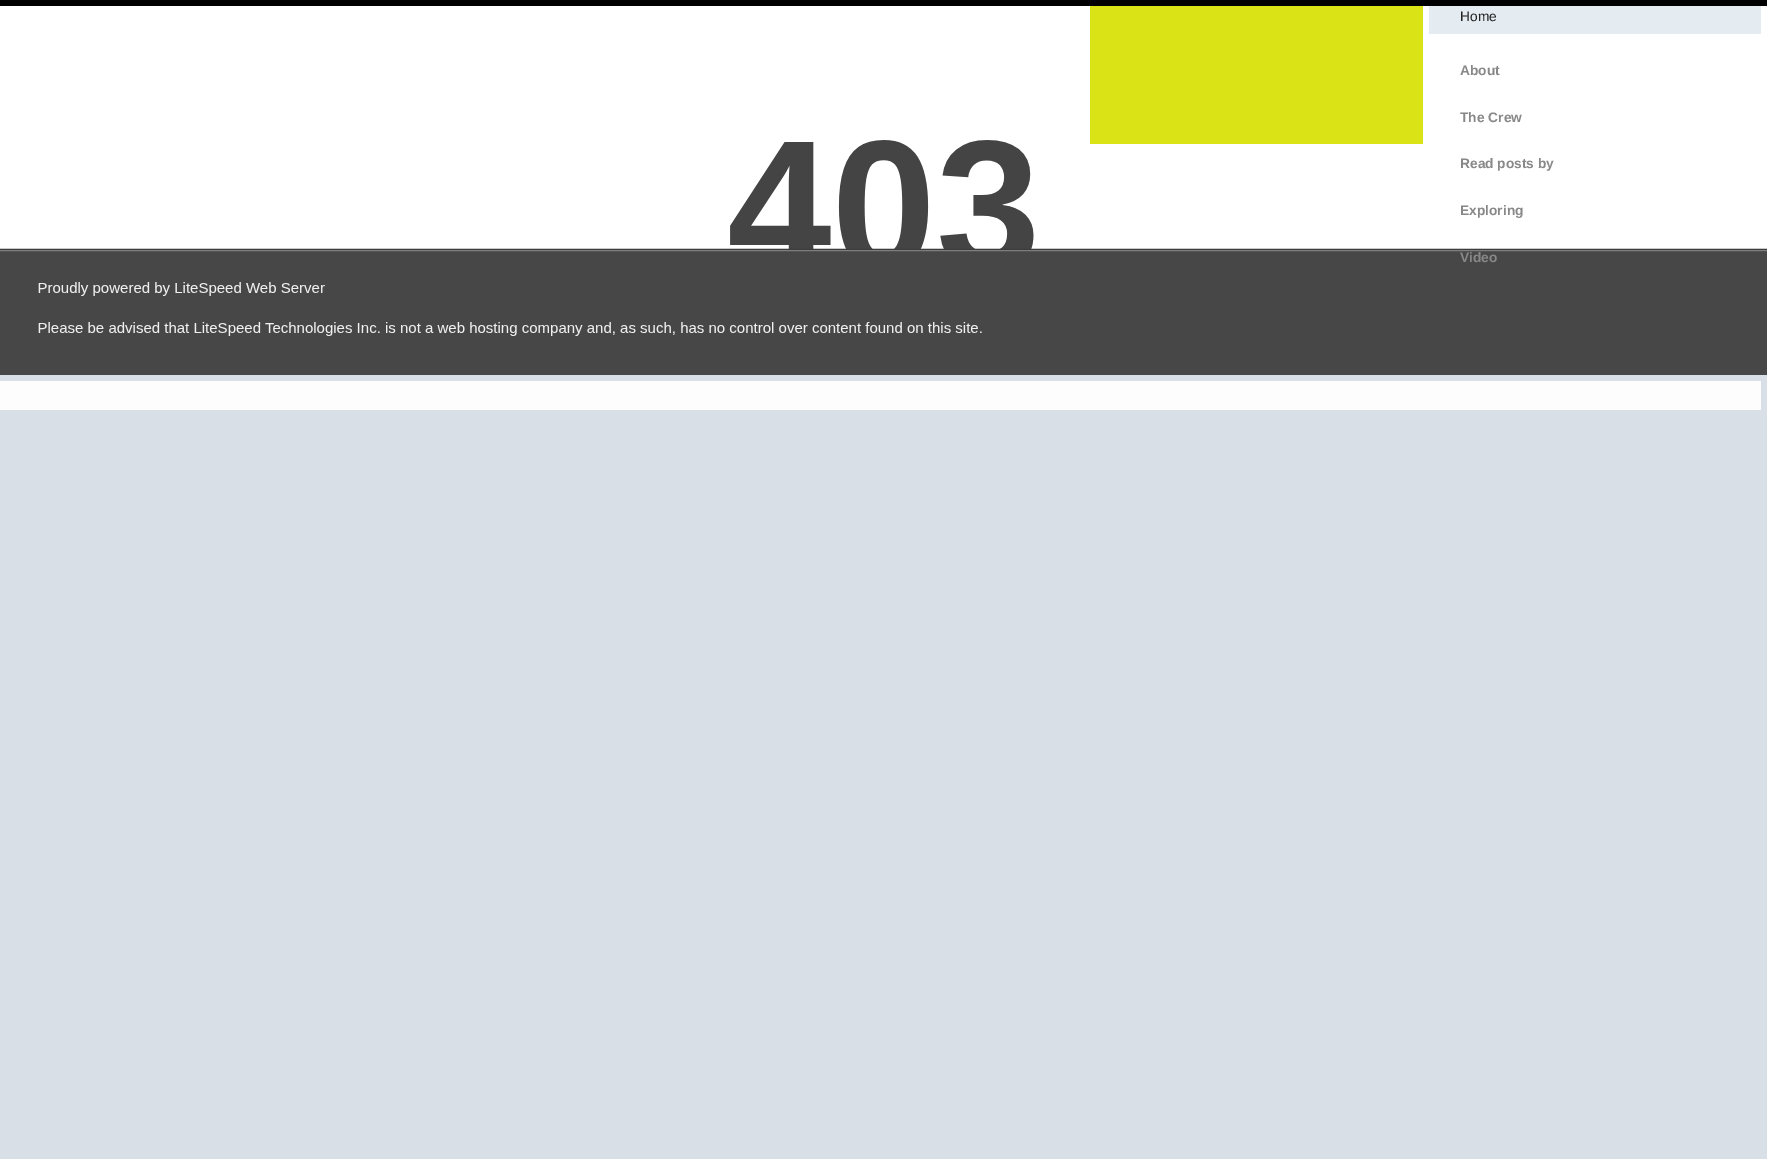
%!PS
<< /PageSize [1767 1159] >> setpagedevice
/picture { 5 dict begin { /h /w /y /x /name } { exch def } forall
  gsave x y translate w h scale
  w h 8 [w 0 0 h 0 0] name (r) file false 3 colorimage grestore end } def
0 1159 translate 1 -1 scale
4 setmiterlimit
0.847 0.875 0.902 setrgbcolor
0 0 1767 1159 rectfill
0 setgray
0 0 1767 6 rectfill
(img1.rgb) 0 6 1767 369 picture
0.992 0.992 0.996 setrgbcolor
0 381 1761 29 rectfill
0.855 0.89 0.082 setrgbcolor
1090 6 333 138 rectfill
0.894 0.922 0.945 setrgbcolor
1429 6 332 28 rectfill
/LiberationSans-Regular [13.75 0 0 -13.75 0 0] selectfont
0.133 setgray
1460 21 moveto (Home) show
/LiberationSans-Bold [13.75 0 0 -13.75 0 0] selectfont
0.533 setgray
1460 75 moveto (About) show
1460 122 moveto (The Crew) show
1460 168 moveto (Read posts by) show
1460 215 moveto (Exploring) show
1460 262 moveto (Video) show
showpage
